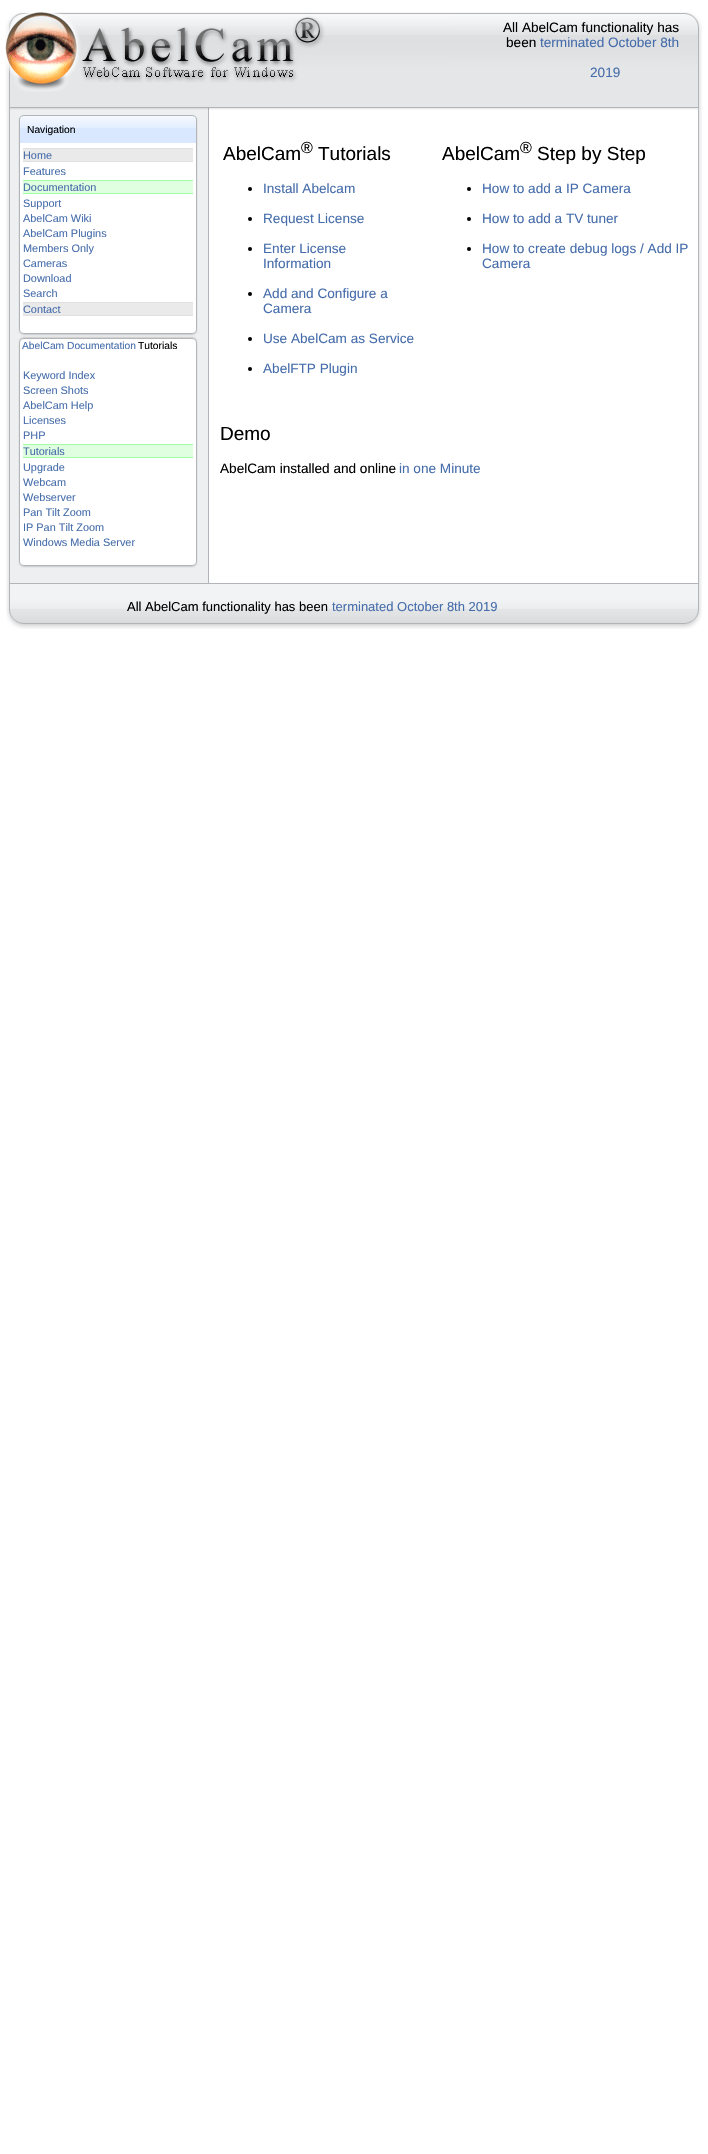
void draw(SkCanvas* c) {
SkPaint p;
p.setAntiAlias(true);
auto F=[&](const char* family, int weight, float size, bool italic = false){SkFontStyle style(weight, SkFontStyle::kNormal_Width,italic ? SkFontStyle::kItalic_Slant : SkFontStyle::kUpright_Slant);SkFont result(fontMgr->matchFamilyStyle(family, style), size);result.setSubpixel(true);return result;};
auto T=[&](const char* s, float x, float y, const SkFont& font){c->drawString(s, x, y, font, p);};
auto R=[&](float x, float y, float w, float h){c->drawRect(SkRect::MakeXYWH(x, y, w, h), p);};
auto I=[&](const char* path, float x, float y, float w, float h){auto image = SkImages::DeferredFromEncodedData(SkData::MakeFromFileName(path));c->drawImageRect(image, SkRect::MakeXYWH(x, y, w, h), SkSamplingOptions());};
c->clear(0xffffffff);
I("1.png",5,12,449,95);
I("2.png",454,12,25,95);
I("3.png",479,12,200,95);
I("4.png",679,12,23,95);
auto f1 = F("Liberation Sans",400,13.6);
p.setColor(0xff000000);
T("All AbelCam functionality has",503,32,f1);
T("been",506,47,f1);
p.setColor(0xff466dab);
T("terminated October 8th",540,47,f1);
T("2019",590,77,f1);
I("5.png",6,107,204,3);
I("6.png",210,107,493,3);
I("7.png",6,110,203,473);
I("8.png",18,115,180,28);
auto f2 = F("Liberation Sans",400,10.25);
p.setColor(0xff000000);
T("Navigation",27,133,f2);
I("9.png",18,143,180,186);
p.setColor(0xffeaeaea);
R(23,149,170,12);
p.setColor(0xffe0e0e0);
R(23,148,170,1);
R(23,161,170,1);
auto f3 = F("Liberation Sans",400,10.9);
p.setColor(0xff466dab);
T("Home",23,159,f3);
T("Features",23,175,f3);
p.setColor(0xffe0ffe0);
R(23,181,170,12);
p.setColor(0xffa0ffa0);
R(23,180,170,1);
R(23,193,170,1);
p.setColor(0xff466dab);
T("Documentation",23,191,f3);
T("Support",23,207,f3);
T("AbelCam Wiki",23,222,f3);
T("AbelCam Plugins",23,237,f3);
T("Members Only",23,252,f3);
T("Cameras",23,267,f3);
T("Download",23,282,f3);
T("Search",23,297,f3);
p.setColor(0xffeaeaea);
R(23,303,170,12);
p.setColor(0xffe0e0e0);
R(23,302,170,1);
R(23,315,170,1);
p.setColor(0xff466dab);
T("Contact",23,313,f3);
I("10.png",18,329,180,7);
I("11.png",18,336,180,28);
T("AbelCam Documentation",22,349,f2);
p.setColor(0xff000000);
T("Tutorials",138,349,f2);
I("12.png",18,364,180,197);
p.setColor(0xff466dab);
T("Keyword Index",23,379,f3);
T("Screen Shots",23,394,f3);
T("AbelCam Help",23,409,f3);
T("Licenses",23,424,f3);
T("PHP",23,439,f3);
p.setColor(0xffe0ffe0);
R(23,445,170,12);
p.setColor(0xffa0ffa0);
R(23,444,170,1);
R(23,457,170,1);
p.setColor(0xff466dab);
T("Tutorials",23,455,f3);
T("Upgrade",23,471,f3);
T("Webcam",23,486,f3);
T("Webserver",23,501,f3);
T("Pan Tilt Zoom",23,516,f3);
T("IP Pan Tilt Zoom",23,531,f3);
T("Windows Media Server",23,546,f3);
I("10.png",18,561,180,7);
I("13.png",698,110,4,473);
auto f4 = F("Liberation Sans",400,19);
p.setColor(0xff000000);
T("AbelCam",223,160,f4);
auto f5 = F("Liberation Sans",400,16);
T("®",301,153,f5);
T("Tutorials",318,160,f4);
c->drawCircle(250,189,2,p);
p.setColor(0xff466dab);
T("Install Abelcam",263,193,f1);
p.setColor(0xff000000);
c->drawCircle(250,219,2,p);
p.setColor(0xff466dab);
T("Request License",263,223,f1);
p.setColor(0xff000000);
c->drawCircle(250,249,2,p);
p.setColor(0xff466dab);
T("Enter License",263,253,f1);
T("Information",263,268,f1);
p.setColor(0xff000000);
c->drawCircle(250,294,2,p);
p.setColor(0xff466dab);
T("Add and Configure a",263,298,f1);
T("Camera",263,313,f1);
p.setColor(0xff000000);
c->drawCircle(250,339,2,p);
p.setColor(0xff466dab);
T("Use AbelCam as Service",263,343,f1);
p.setColor(0xff000000);
c->drawCircle(250,369,2,p);
p.setColor(0xff466dab);
T("AbelFTP Plugin",263,373,f1);
p.setColor(0xff000000);
T("AbelCam",442,160,f4);
T("®",520,153,f5);
T("Step by Step",537,160,f4);
c->drawCircle(469,189,2,p);
p.setColor(0xff466dab);
T("How to add a IP Camera",482,193,f1);
p.setColor(0xff000000);
c->drawCircle(469,219,2,p);
p.setColor(0xff466dab);
T("How to add a TV tuner",482,223,f1);
p.setColor(0xff000000);
c->drawCircle(469,249,2,p);
p.setColor(0xff466dab);
T("How to create debug logs / Add IP",482,253,f1);
T("Camera",482,268,f1);
p.setColor(0xff000000);
T("Demo",220,440,f4);
T("AbelCam installed and online",220,473,f1);
p.setColor(0xff466dab);
T("in one Minute",399,473,f1);
I("14.png",6,583,693,1);
I("15.png",699,583,3,1);
I("16.png",6,584,673,45);
auto f6 = F("Liberation Sans",400,13);
p.setColor(0xff000000);
T("All AbelCam functionality has been",127,611,f6);
p.setColor(0xff466dab);
T("terminated October 8th 2019",332,611,f6);
I("17.png",679,584,23,45);
}
